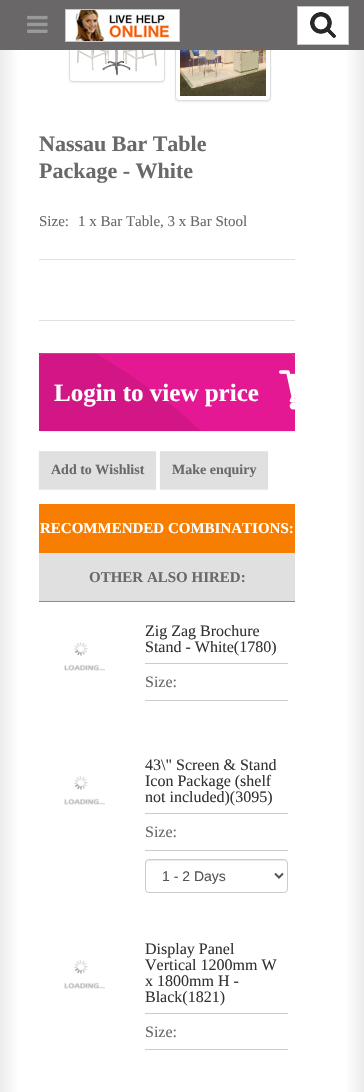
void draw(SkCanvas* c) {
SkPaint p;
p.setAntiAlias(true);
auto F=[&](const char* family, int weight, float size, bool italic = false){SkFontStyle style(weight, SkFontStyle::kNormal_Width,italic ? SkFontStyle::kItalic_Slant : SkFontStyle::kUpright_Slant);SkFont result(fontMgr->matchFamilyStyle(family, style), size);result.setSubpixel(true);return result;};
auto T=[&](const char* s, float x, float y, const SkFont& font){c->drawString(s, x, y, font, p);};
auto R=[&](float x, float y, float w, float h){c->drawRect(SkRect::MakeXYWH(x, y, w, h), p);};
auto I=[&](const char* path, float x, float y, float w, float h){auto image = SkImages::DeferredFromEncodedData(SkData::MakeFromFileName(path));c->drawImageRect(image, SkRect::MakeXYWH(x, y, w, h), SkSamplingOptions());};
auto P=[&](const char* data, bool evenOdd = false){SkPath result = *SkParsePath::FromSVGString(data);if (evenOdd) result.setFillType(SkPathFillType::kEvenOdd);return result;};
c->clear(0xffffffff);
{
const SkColor colors[] = {0xffebebeb,0xffffffff,0xffffffff,0xffebebeb};
const float stops[] = {0,.05,.95,1};
const SkPoint ends[] = {{0,508}, {364,508}};
p.setShader(SkGradientShader::MakeLinear(ends, colors, stops, 4, SkTileMode::kClamp));
p.setAlpha(255);
}
R(0,50,364,1042);
p.setShader(nullptr);
p.setColor(0x12000000);
p.setMaskFilter(SkMaskFilter::MakeBlur(kNormal_SkBlurStyle, 1));
c->drawRoundRect(SkRect::MakeXYWH(69,6,96,77),4,4,p);
p.setMaskFilter(nullptr);
p.setColor(0xffffffff);
c->drawRoundRect(SkRect::MakeXYWH(69.5,5.5,95,76),3.5,3.5,p);
p.setStroke(true);
p.setStrokeWidth(1);
p.setColor(0xffdddddd);
c->drawRoundRect(SkRect::MakeXYWH(69.5,5.5,95,76),3.5,3.5,p);
p.setStroke(false);
p.setColor(0x12000000);
p.setMaskFilter(SkMaskFilter::MakeBlur(kNormal_SkBlurStyle, 1));
c->drawRoundRect(SkRect::MakeXYWH(175,6,96,96),4,4,p);
p.setMaskFilter(nullptr);
p.setColor(0xffffffff);
c->drawRoundRect(SkRect::MakeXYWH(175.5,5.5,95,95),3.5,3.5,p);
p.setStroke(true);
p.setColor(0xffdddddd);
c->drawRoundRect(SkRect::MakeXYWH(175.5,5.5,95,95),3.5,3.5,p);
p.setStroke(false);
p.setColor(0xff696767);
R(0,0,364,50);
I("1.png",27,15,21,18);
I("2.png",65,9,115,33);
p.setColor(0xffffffff);
c->drawRect(SkRect::MakeXYWH(297.5,6.5,51,38),p);
p.setStroke(true);
p.setColor(0xffc7c7c7);
c->drawRect(SkRect::MakeXYWH(297.5,6.5,51,38),p);
I("3.png",310,12,26,26);
I("4.png",77,50,80,26);
I("5.png",180,50,86,46);
auto f1 = F("Liberation Serif",700,22);
p.setStroke(false);
p.setColor(0xff6a6868);
T("Nassau Bar Table",39,151,f1);
T("Package - White",39,178,f1);
auto f2 = F("Liberation Serif",400,15);
T("Size:",39,226,f2);
T("1 x Bar Table, 3 x Bar Stool",78,226,f2);
p.setColor(0xffe0e0e0);
R(39,259,256,1);
R(39,320,256,1);
p.setColor(0xffe41892);
R(39,353,256,78);
I("6.png",39,353,162,78);
c->save();
c->clipPath(P("M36 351h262v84h-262zm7 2h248c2 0 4 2 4 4v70c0 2-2 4-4 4h-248c-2 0-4-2-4-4v-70c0-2 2-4 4-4z",true),true);
p.setColor(0x12000000);
p.setMaskFilter(SkMaskFilter::MakeBlur(kNormal_SkBlurStyle, .5));
c->drawRoundRect(SkRect::MakeXYWH(39,354,256,78),4,4,p);
p.setMaskFilter(nullptr);
c->restore();
p.setColor(0x26ffffff);
c->drawPath(P("M43 354h249l2 2l1 2v-1c0-2-2-4-4-4h-248c-2 0-4 2-4 4v1c0-2 2-4 4-4z"),p);
auto f3 = F("Liberation Serif",700,25);
p.setColor(0xffffffff);
T("Login to view price",54,401,f3);
I("7.png",279,370,16,40);
p.setColor(0x12000000);
p.setMaskFilter(SkMaskFilter::MakeBlur(kNormal_SkBlurStyle, .5));
c->drawRect(SkRect::MakeXYWH(39,452,117,38),p);
p.setMaskFilter(nullptr);
p.setColor(0xffe0e0e0);
R(39,452,117,37);
p.setColor(0xffe5e5e5);
R(39,451,117,1);
auto f4 = F("Liberation Serif",700,14);
p.setColor(0xff6a6868);
T("Add to Wishlist",51,474,f4);
p.setColor(0x12000000);
p.setMaskFilter(SkMaskFilter::MakeBlur(kNormal_SkBlurStyle, .5));
c->drawRect(SkRect::MakeXYWH(160,452,108,38),p);
p.setMaskFilter(nullptr);
p.setColor(0xffe0e0e0);
R(160,452,108,37);
p.setColor(0xffe5e5e5);
R(160,451,108,1);
p.setColor(0xff6a6868);
T("Make enquiry",172,474,f4);
p.setColor(0xfff2653f);
R(39,601,256,1);
p.setColor(0xfff77e00);
R(39,504,256,49);
auto f5 = F("Liberation Serif",700,15);
p.setColor(0xffffffff);
T("RECOMMENDED COMBINATIONS:",40,533,f5);
p.setColor(0xffe0e0e0);
R(39,553,256,48);
p.setColor(0xff6a6868);
T("OTHER ALSO HIRED:",89,582,f5);
I("8.png",64,642,41,29);
p.setColor(0xffcccccc);
R(145,663,143,1);
auto f6 = F("Liberation Serif",400,16);
p.setColor(0xff333333);
T("Zig Zag Brochure",145,636,f6);
T("Stand - White(1780)",145,652,f6);
p.setColor(0xffcccccc);
R(145,700,143,1);
p.setColor(0xff6a6868);
T("Size:",145,687,f6);
I("8.png",64,776,41,29);
p.setColor(0xffcccccc);
R(145,813,143,1);
p.setColor(0xff333333);
T("43\\\" Screen & Stand",145,770,f6);
T("Icon Package (shelf",145,786,f6);
T("not included)(3095)",145,802,f6);
p.setColor(0xffcccccc);
R(145,850,143,1);
p.setColor(0xff6a6868);
T("Size:",145,837,f6);
p.setColor(0xffececec);
c->drawPath(P("M149 861h135c2 0 3 1 3 3v-1c0-2-1-3-3-3h-135c-2 0-3 1-3 3v1c0-2 1-3 3-3z"),p);
p.setStroke(true);
p.setColor(0xffcccccc);
c->drawRoundRect(SkRect::MakeXYWH(145.5,859.5,142,33),3.5,3.5,p);
p.setStrokeWidth(2);
p.setColor(0xff555555);
c->drawPath(P("M275 873.5l4 4l4-4"),p);
auto f7 = F("Liberation Sans",400,14);
p.setStroke(false);
T("1 - 2 Days",162,881,f7);
I("8.png",64,960,41,29);
p.setColor(0xffcccccc);
R(145,1013,143,1);
p.setColor(0xff333333);
T("Display Panel",145,954,f6);
T("Vertical 1200mm W",145,970,f6);
T("x 1800mm H -",145,986,f6);
T("Black(1821)",145,1002,f6);
p.setColor(0xffcccccc);
R(145,1049,143,1);
p.setColor(0xff6a6868);
T("Size:",145,1037,f6);
}
